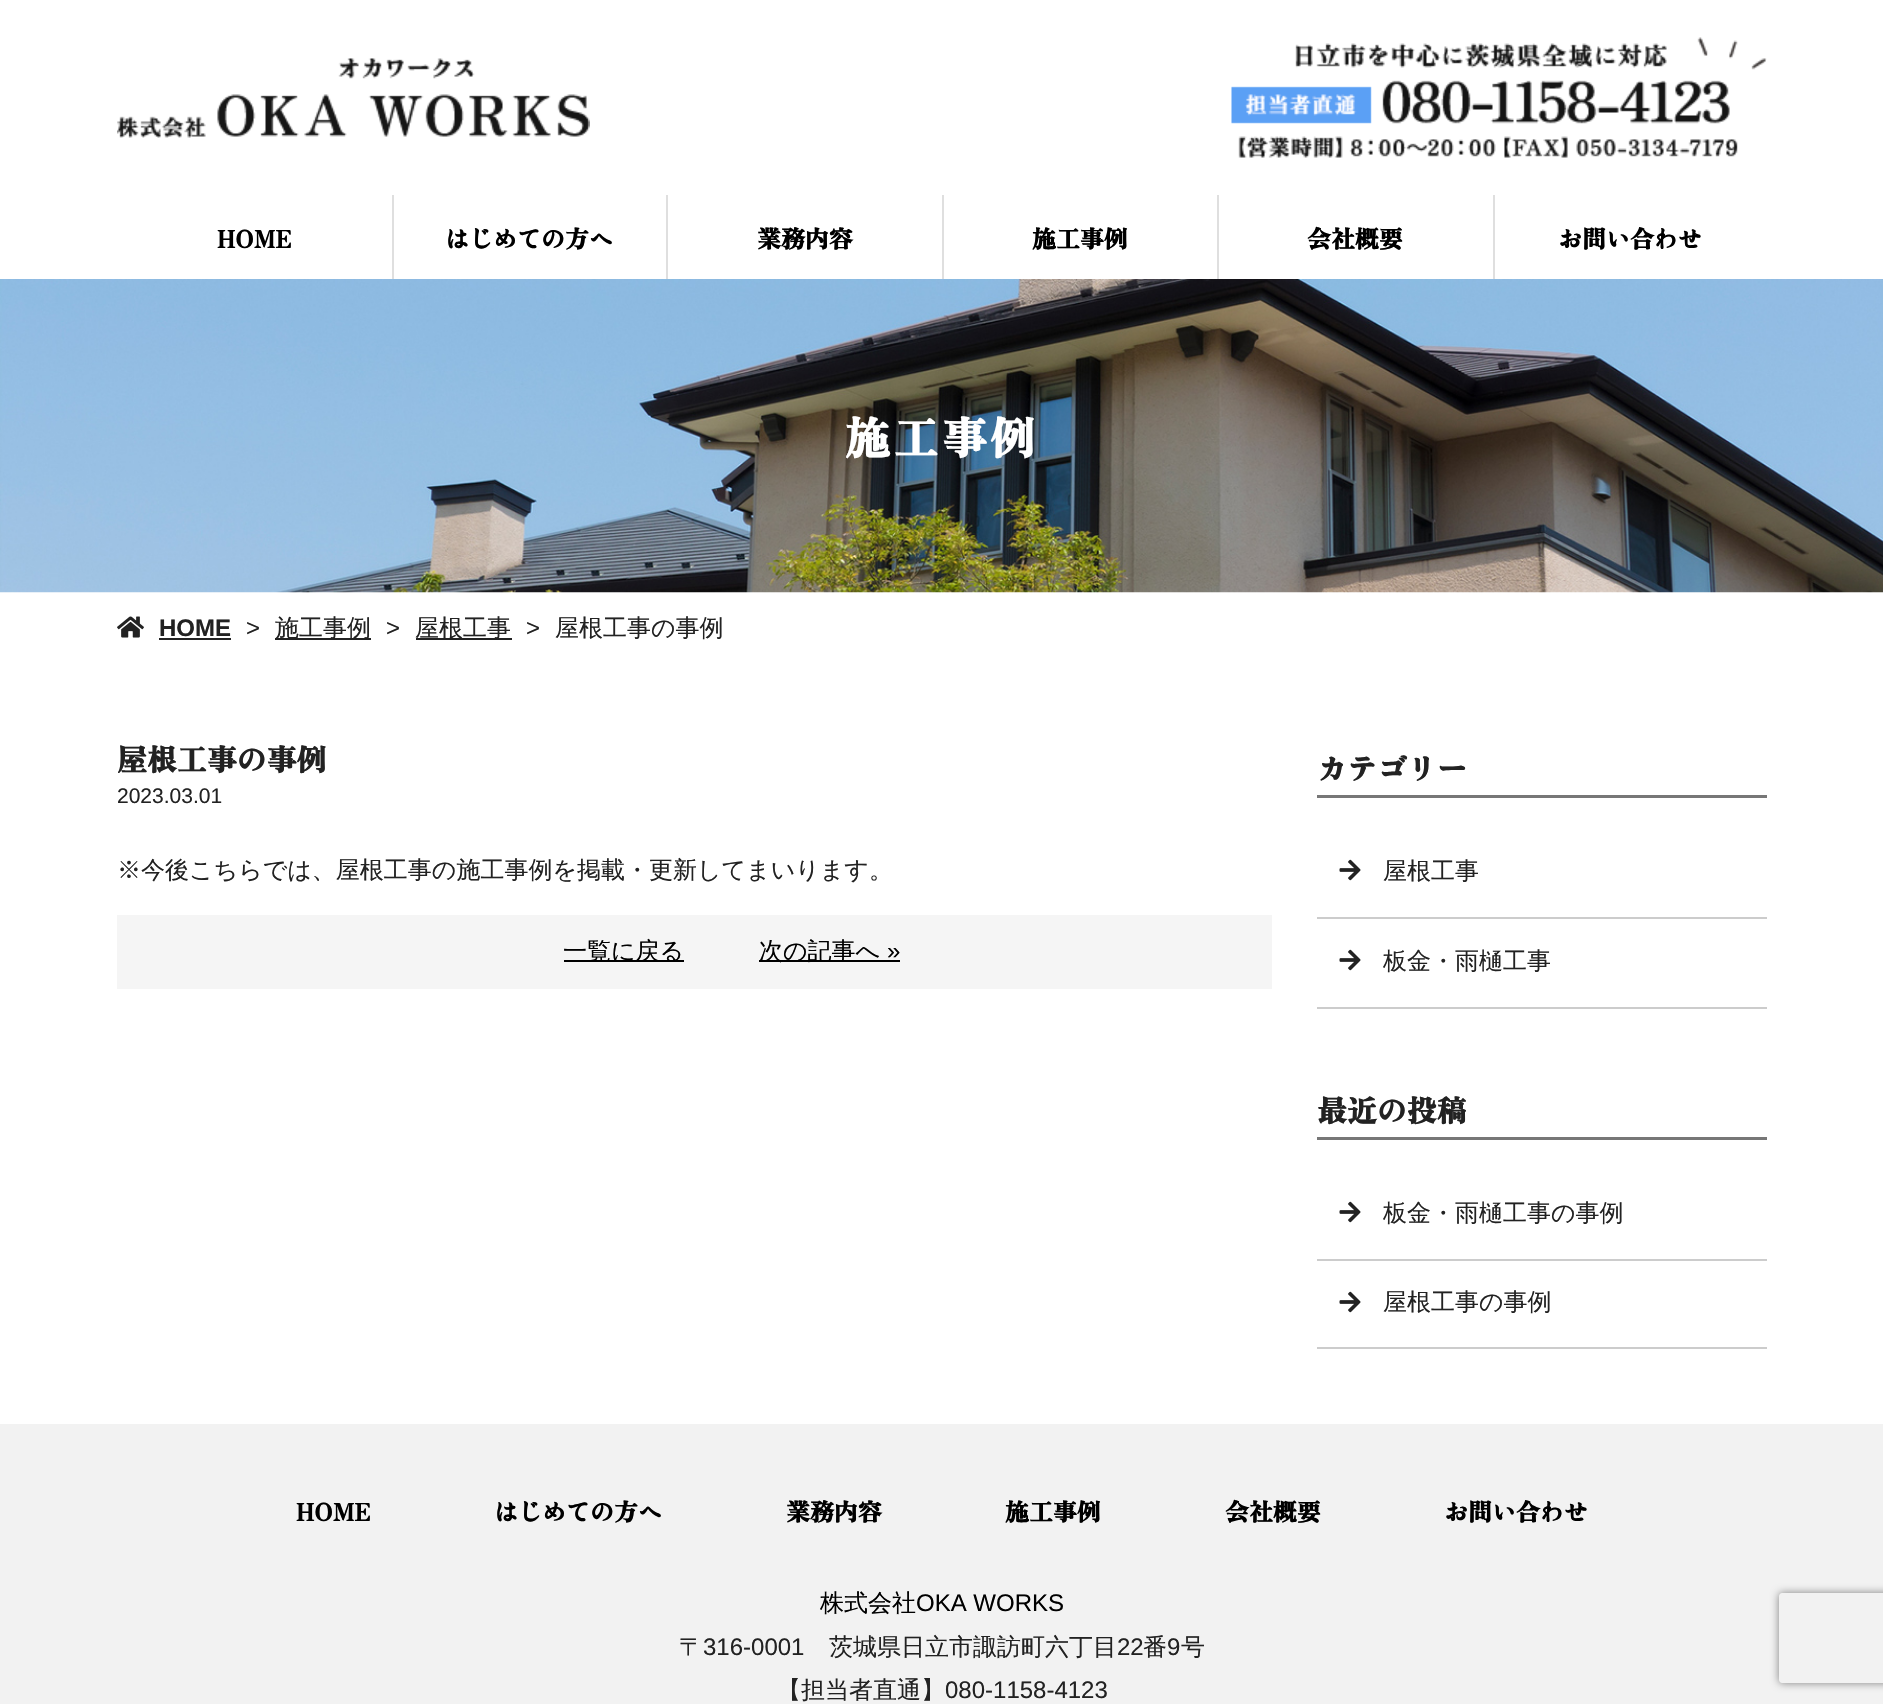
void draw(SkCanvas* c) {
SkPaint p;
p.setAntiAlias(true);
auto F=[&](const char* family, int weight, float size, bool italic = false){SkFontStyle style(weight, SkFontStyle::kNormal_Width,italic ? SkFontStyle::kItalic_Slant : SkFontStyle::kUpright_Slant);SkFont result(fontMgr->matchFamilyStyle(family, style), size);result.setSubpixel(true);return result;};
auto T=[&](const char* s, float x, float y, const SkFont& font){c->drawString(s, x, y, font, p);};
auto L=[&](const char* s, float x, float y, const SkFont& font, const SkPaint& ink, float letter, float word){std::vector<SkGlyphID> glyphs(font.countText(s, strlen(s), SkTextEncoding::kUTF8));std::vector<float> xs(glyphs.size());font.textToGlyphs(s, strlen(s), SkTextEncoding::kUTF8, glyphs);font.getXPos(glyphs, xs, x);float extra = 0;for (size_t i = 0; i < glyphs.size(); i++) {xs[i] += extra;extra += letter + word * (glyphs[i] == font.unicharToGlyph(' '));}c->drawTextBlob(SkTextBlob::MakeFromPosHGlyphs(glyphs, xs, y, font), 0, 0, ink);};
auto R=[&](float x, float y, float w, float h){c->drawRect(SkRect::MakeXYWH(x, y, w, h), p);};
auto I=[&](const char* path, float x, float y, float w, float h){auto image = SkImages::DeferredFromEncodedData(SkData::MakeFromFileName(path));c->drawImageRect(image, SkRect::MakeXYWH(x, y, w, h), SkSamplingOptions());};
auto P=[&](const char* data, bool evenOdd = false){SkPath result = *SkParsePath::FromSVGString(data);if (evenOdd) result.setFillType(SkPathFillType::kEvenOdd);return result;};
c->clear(0xffffffff);
I("1.png",117,58,473,80);
I("2.png",1231,37,536,121);
auto f1 = F("Zen Antique",700,24);
p.setColor(0xff000000);
T("HOME",217,248,f1);
p.setColor(0xffdfdfdf);
R(392,195,2,84);
p.setColor(0xff000000);
T("はじめての方へ",445,248,f1);
p.setColor(0xffdfdfdf);
R(666,195,2,84);
p.setColor(0xff000000);
T("業務内容",757,248,f1);
p.setColor(0xffdfdfdf);
R(942,195,2,84);
p.setColor(0xff000000);
T("施工事例",1032,248,f1);
p.setColor(0xffdfdfdf);
R(1217,195,2,84);
p.setColor(0xff000000);
T("会社概要",1307,248,f1);
p.setColor(0xffdfdfdf);
R(1493,195,2,84);
p.setColor(0xff000000);
T("お問い合わせ",1558,248,f1);
I("3.png",0,279,1883,314);
auto f2 = F("Zen Antique",700,45);
p.setColor(0xffffffff);
L("施工事例",845,455,f2,p,3.5,0);
I("4.png",117,616,27,22);
auto f3 = F("Liberation Sans",700,24);
p.setColor(0xff222222);
T("HOME",159,636,f3);
R(159,638,72,2);
auto f4 = F("Liberation Sans",400,24);
T(">",246,636,f4);
R(275,638,96,2);
auto f5 = F("WenQuanYi Zen Hei",500,24);
T("施工事例",275,636,f5);
T(">",386,636,f4);
R(416,638,96,2);
T("屋根工事",415,636,f5);
T(">",526,636,f4);
T("屋根工事の事例",555,636,f5);
auto f6 = F("Zen Antique",700,30);
T("屋根工事の事例",117,771,f6);
auto f7 = F("Liberation Sans",400,21);
T("2023.03.01",117,803,f7);
T("※今後こちらでは、屋根工事の施工事例を掲載・更新してまいります。",117,878,f5);
p.setColor(0xfff5f5f5);
R(117,915,1155,74);
p.setColor(0xff000000);
R(564,960,120,2);
T("一覧に戻る",563,959,f5);
R(759,960,141,2);
T("次の記事へ",759,959,f5);
T("»",887,959,f4);
p.setColor(0xff777777);
R(1317,795,450,3);
p.setColor(0xff222222);
T("カテゴリー",1317,780,f6);
p.setColor(0xffcccccc);
R(1317,917,450,2);
I("5.png",1339,859,22,22);
p.setColor(0xff222222);
T("屋根工事",1383,879,f5);
p.setColor(0xffcccccc);
R(1317,1007,450,2);
I("5.png",1339,949,22,22);
p.setColor(0xff222222);
T("板金・雨樋工事",1383,969,f5);
p.setColor(0xff777777);
R(1317,1137,450,3);
p.setColor(0xff222222);
T("最近の投稿",1317,1122,f6);
p.setColor(0xffcccccc);
R(1317,1259,450,2);
I("5.png",1339,1201,22,22);
p.setColor(0xff222222);
T("板金・雨樋工事の事例",1383,1221,f5);
p.setColor(0xffcccccc);
R(1317,1347,450,2);
I("5.png",1339,1291,22,22);
p.setColor(0xff222222);
T("屋根工事の事例",1383,1310,f5);
p.setColor(0xfff2f2f2);
R(0,1424,1883,280);
p.setColor(0xff000000);
T("HOME",296,1521,f1);
T("はじめての方へ",494,1521,f1);
T("業務内容",786,1521,f1);
T("施工事例",1005,1521,f1);
T("会社概要",1225,1521,f1);
T("お問い合わせ",1444,1521,f1);
T("株式会社",820,1611,f5);
T("OKA WORKS",916,1611,f4);
p.setColor(0xff222222);
T("〒",679,1655,f5);
T("316-0001",703,1655,f4);
T("茨城県日立市諏訪町六丁目",829,1655,f5);
T("22",1117,1655,f4);
T("番",1143,1655,f5);
T("9",1167,1655,f4);
T("号",1181,1655,f5);
T("【担当者直通】",777,1698,f5);
T("080-1158-4123",945,1698,f4);
c->save();
c->clipPath(P("M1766 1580h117v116h-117zm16 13h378c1.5 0 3 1.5 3 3v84c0 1.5-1.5 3-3 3h-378c-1.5 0-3-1.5-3-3v-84c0-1.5 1.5-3 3-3z",true),true);
p.setColor(0xff808080);
p.setMaskFilter(SkMaskFilter::MakeBlur(kNormal_SkBlurStyle, 4));
c->drawRoundRect(SkRect::MakeXYWH(1779,1593,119,90),3,3,p);
p.setMaskFilter(nullptr);
c->restore();
}
